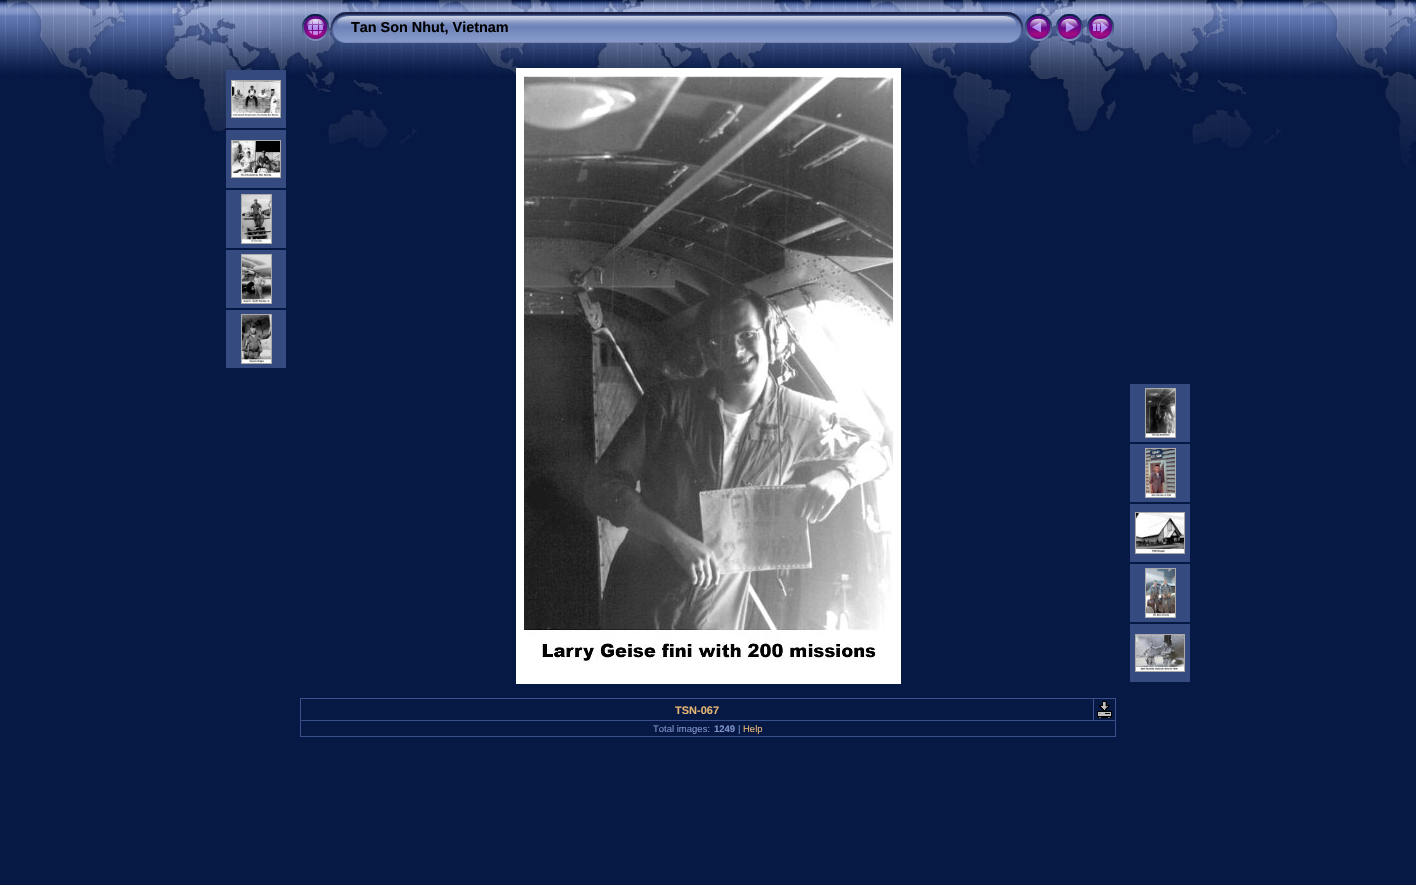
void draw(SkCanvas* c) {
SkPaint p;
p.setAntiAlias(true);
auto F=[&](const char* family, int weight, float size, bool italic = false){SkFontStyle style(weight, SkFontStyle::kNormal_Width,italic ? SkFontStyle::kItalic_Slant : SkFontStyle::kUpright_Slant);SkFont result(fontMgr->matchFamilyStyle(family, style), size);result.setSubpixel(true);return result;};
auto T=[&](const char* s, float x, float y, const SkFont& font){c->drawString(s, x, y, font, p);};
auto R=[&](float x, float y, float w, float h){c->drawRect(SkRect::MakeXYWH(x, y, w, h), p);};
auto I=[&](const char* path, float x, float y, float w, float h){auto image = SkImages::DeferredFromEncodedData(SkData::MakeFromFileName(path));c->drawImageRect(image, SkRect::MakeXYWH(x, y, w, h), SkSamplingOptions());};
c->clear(0xff061844);
I("1.png",0,0,1416,168);
I("2.png",302,14,27,27);
I("3.png",331,12,20,31);
I("4.png",351,12,652,31);
auto f1 = F("Liberation Sans",700,14.4);
p.setColor(0xff000000);
T("Tan Son Nhut, Vietnam",351,32,f1);
I("5.png",1003,12,20,31);
I("6.png",1025,14,27,27);
I("7.png",1056,14,27,27);
I("8.png",1087,14,27,27);
p.setColor(0xff354b7f);
R(226,70,60,58);
p.setStroke(true);
p.setStrokeWidth(1);
p.setColor(0xffaaaaaa);
c->drawRect(SkRect::MakeXYWH(231.5,80.5,49,37),p);
I("9.png",232,81,48,36);
p.setStroke(false);
p.setColor(0xff354b7f);
R(226,130,60,58);
p.setStroke(true);
p.setColor(0xffaaaaaa);
c->drawRect(SkRect::MakeXYWH(231.5,140.5,49,37),p);
I("10.png",232,141,48,36);
p.setStroke(false);
p.setColor(0xff354b7f);
R(226,190,60,58);
p.setStroke(true);
p.setColor(0xffaaaaaa);
c->drawRect(SkRect::MakeXYWH(241.5,194.5,30,49),p);
I("11.png",242,195,29,48);
p.setStroke(false);
p.setColor(0xff354b7f);
R(226,250,60,58);
p.setStroke(true);
p.setColor(0xffaaaaaa);
c->drawRect(SkRect::MakeXYWH(241.5,254.5,30,49),p);
I("12.png",242,255,29,48);
p.setStroke(false);
p.setColor(0xff354b7f);
R(226,310,60,58);
p.setStroke(true);
p.setColor(0xffaaaaaa);
c->drawRect(SkRect::MakeXYWH(241.5,314.5,30,49),p);
I("13.png",242,315,29,48);
p.setStrokeWidth(8);
p.setColor(0xffffffff);
c->drawRect(SkRect::MakeXYWH(520,72,377,608),p);
I("14.png",524,76,369,600);
p.setStroke(false);
p.setColor(0xff354b7f);
R(1130,384,60,58);
p.setStroke(true);
p.setStrokeWidth(1);
p.setColor(0xffaaaaaa);
c->drawRect(SkRect::MakeXYWH(1145.5,388.5,30,49),p);
I("15.png",1146,389,29,48);
p.setStroke(false);
p.setColor(0xff354b7f);
R(1130,444,60,58);
p.setStroke(true);
p.setColor(0xffaaaaaa);
c->drawRect(SkRect::MakeXYWH(1145.5,448.5,30,49),p);
I("16.png",1146,449,29,48);
p.setStroke(false);
p.setColor(0xff354b7f);
R(1130,504,60,58);
p.setStroke(true);
p.setColor(0xffaaaaaa);
c->drawRect(SkRect::MakeXYWH(1135.5,512.5,49,41),p);
I("17.png",1136,513,48,40);
p.setStroke(false);
p.setColor(0xff354b7f);
R(1130,564,60,58);
p.setStroke(true);
p.setColor(0xffaaaaaa);
c->drawRect(SkRect::MakeXYWH(1145.5,568.5,30,49),p);
I("18.png",1146,569,29,48);
p.setStroke(false);
p.setColor(0xff354b7f);
R(1130,624,60,58);
p.setStroke(true);
p.setColor(0xffaaaaaa);
c->drawRect(SkRect::MakeXYWH(1135.5,634.5,49,37),p);
I("19.png",1136,635,48,36);
p.setStroke(false);
p.setColor(0xff38518c);
R(1093,698,23,1);
R(300,720,816,1);
R(1093,698,1,23);
R(300,698,794,1);
R(1115,720,1,17);
R(300,736,816,1);
R(300,720,1,17);
R(300,698,1,23);
auto f2 = F("Liberation Sans",700,11);
p.setColor(0xffe5b673);
T("TSN-067",675,714,f2);
p.setColor(0xff38518c);
R(1115,698,1,23);
I("20.png",1097,701,15,17);
auto f3 = F("Liberation Sans",400,9.5);
p.setColor(0xff7e93cc);
T("Total images:",653,732,f3);
auto f4 = F("Liberation Sans",700,9.5);
T("1249",714,732,f4);
T("|",738,732,f3);
p.setColor(0xffe5b673);
T("Help",743,732,f3);
}
